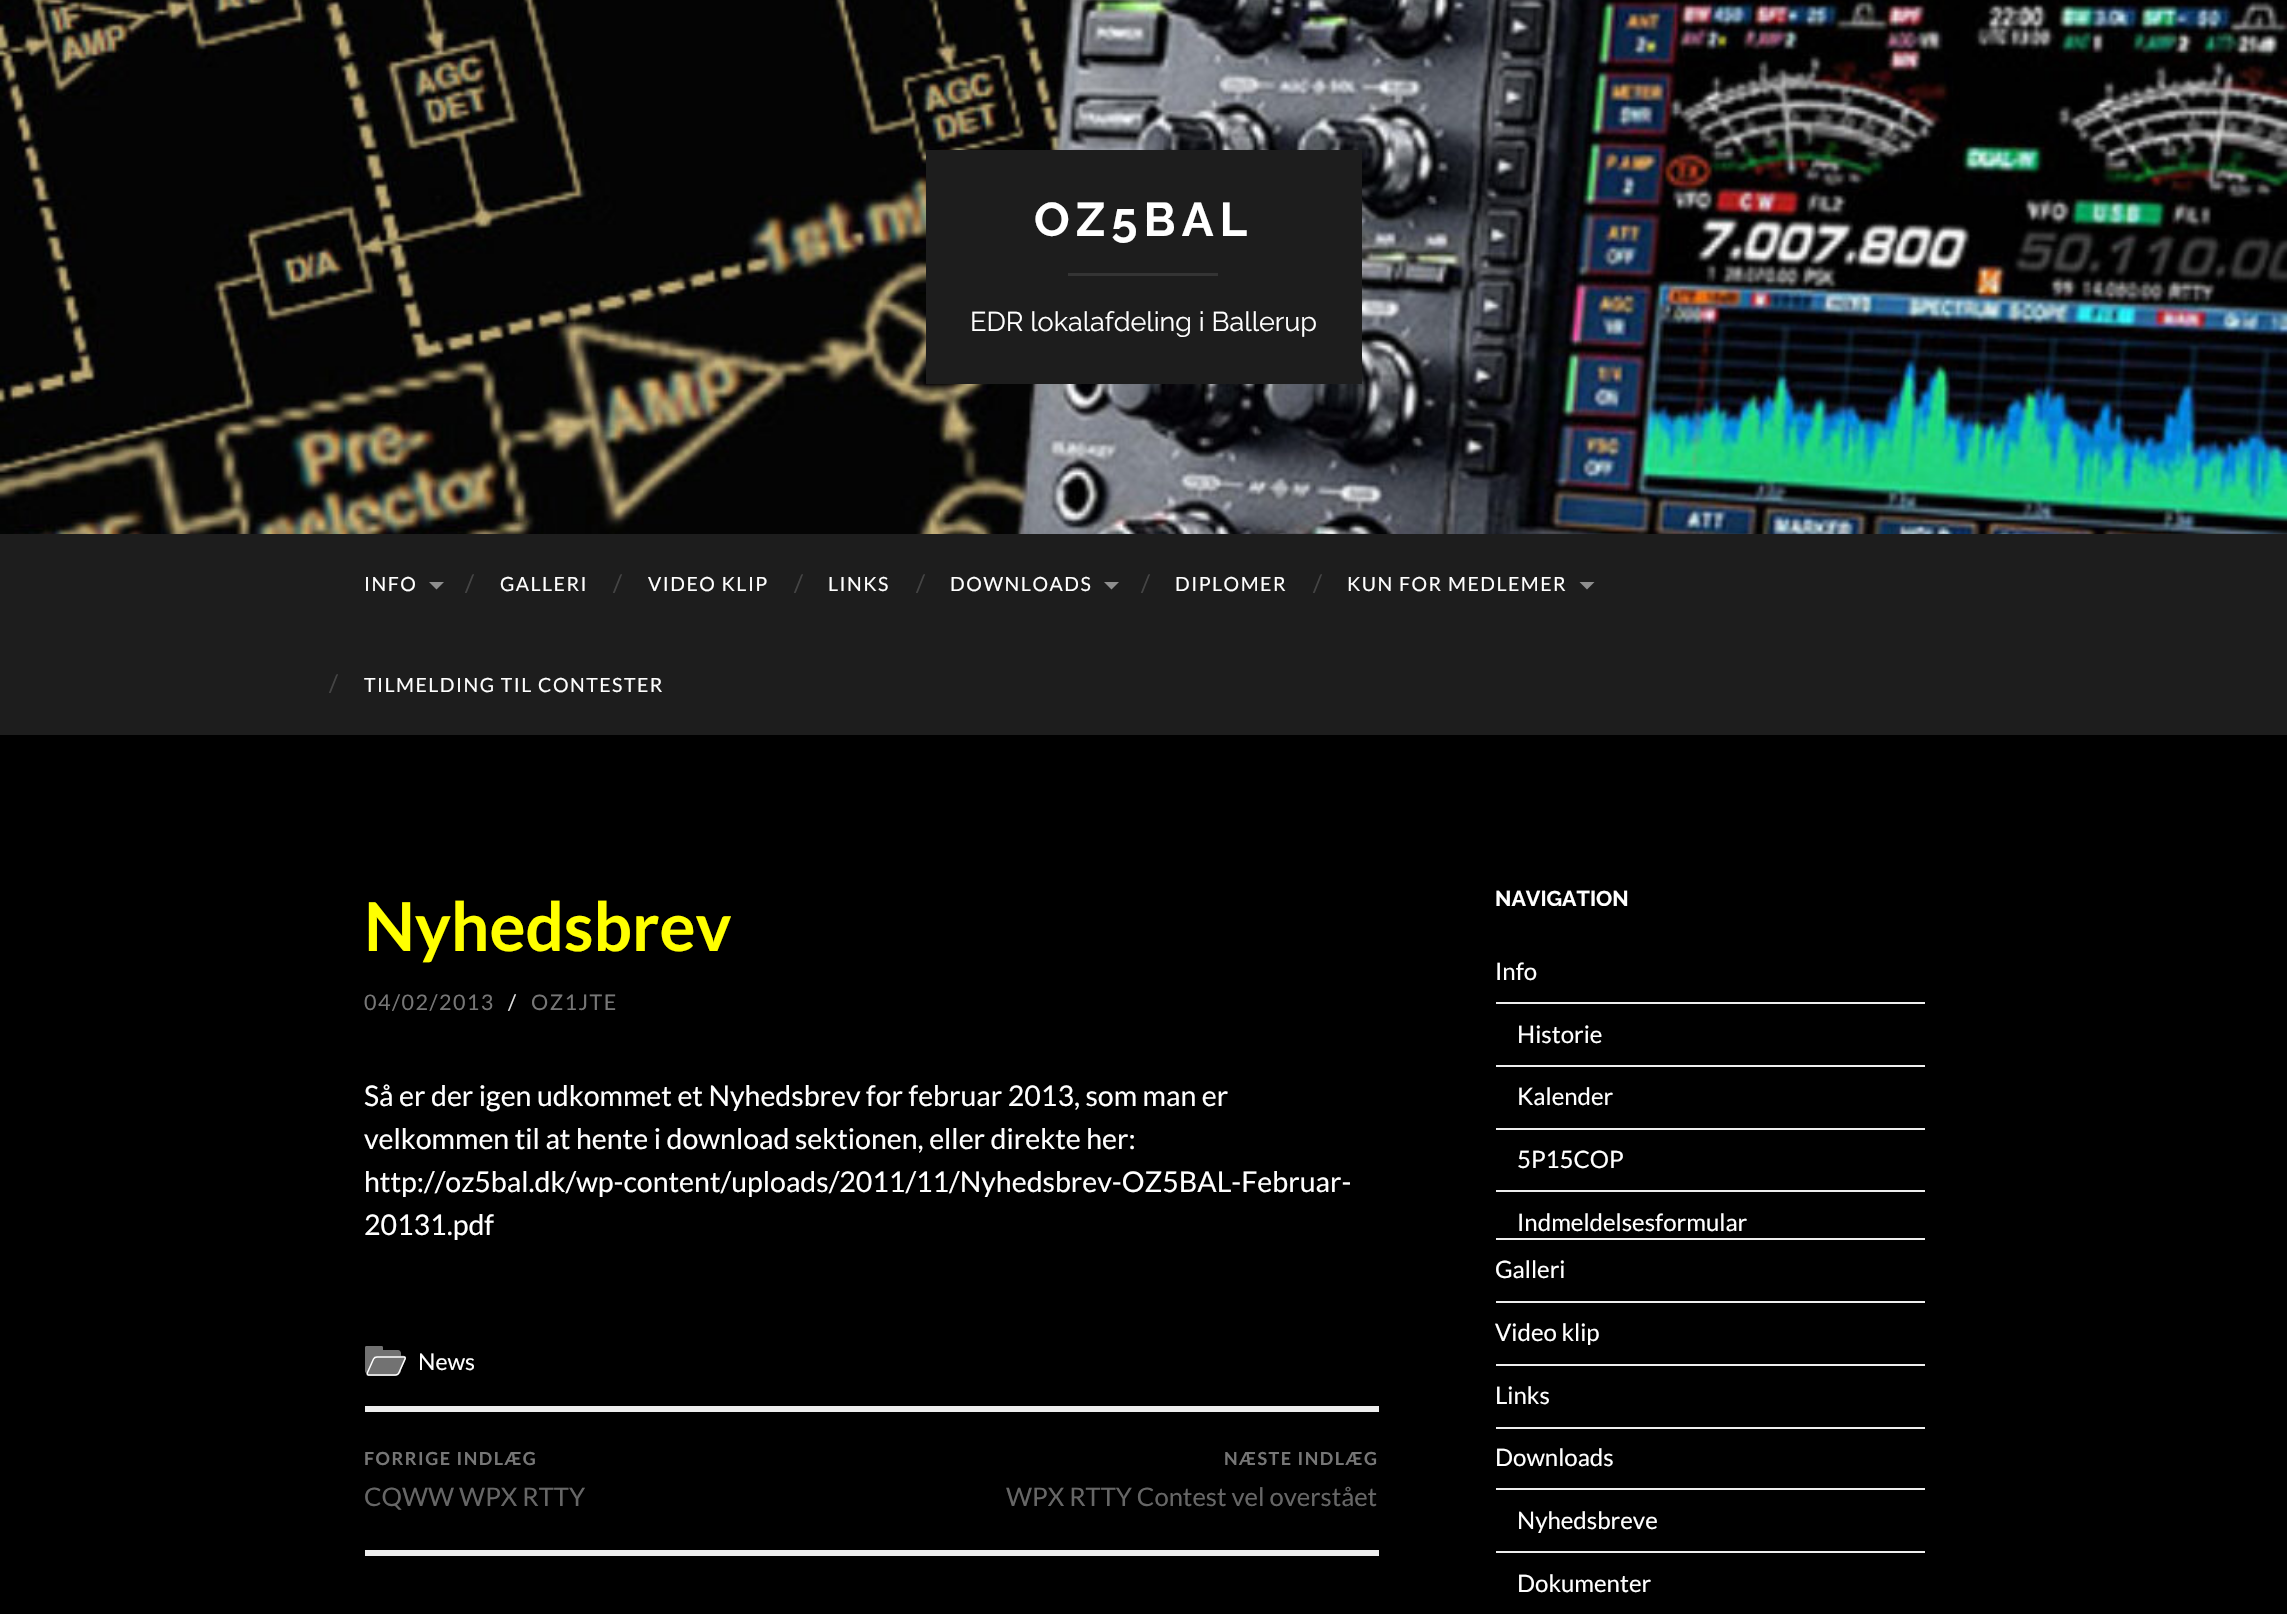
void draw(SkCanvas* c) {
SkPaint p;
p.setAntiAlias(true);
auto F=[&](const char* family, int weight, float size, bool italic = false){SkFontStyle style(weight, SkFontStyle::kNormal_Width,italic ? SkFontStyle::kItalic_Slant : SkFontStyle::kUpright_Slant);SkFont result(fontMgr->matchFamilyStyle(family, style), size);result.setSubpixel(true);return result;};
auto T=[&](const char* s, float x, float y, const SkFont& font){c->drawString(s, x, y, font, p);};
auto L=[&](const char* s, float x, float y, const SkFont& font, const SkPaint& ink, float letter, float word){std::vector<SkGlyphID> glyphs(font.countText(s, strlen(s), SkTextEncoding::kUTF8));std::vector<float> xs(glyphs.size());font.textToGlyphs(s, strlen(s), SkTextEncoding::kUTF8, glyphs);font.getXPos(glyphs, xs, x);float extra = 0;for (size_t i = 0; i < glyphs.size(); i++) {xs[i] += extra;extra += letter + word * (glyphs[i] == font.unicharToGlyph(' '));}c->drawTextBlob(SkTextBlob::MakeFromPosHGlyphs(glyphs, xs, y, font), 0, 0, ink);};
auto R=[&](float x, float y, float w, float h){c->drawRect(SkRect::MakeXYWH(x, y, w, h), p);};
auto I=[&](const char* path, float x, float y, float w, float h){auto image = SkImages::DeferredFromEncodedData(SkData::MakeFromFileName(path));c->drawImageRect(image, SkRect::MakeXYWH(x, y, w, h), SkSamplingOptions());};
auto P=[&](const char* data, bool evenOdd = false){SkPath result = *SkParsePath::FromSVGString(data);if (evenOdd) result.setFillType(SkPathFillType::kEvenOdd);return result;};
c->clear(0xff000000);
I("1.png",0,0,2287,534);
p.setColor(0xff1d1d1d);
R(926,150,436,234);
auto f1 = F("Raleway",100,47.25);
p.setColor(0xffffffff);
L("OZ5BAL",1034,236,f1,p,6,0);
p.setColor(0xff343434);
R(1068,273,150,3);
auto f2 = F("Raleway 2",100,27);
p.setColor(0xffffffff);
T("EDR lokalafdeling i Ballerup",970,331,f2);
p.setColor(0xff1d1d1d);
R(0,534,2287,201);
auto f3 = F("Lato",400,19.5);
p.setColor(0xffffffff);
L("INFO",364,591,f3,p,1.5,0);
p.setColor(0xff8e8e8e);
c->drawPath(P("M429 582h15l-7.5 7.5z"),p);
auto f4 = F("Lato",400,24);
p.setColor(0xff444444);
T("/",465,592,f4);
p.setColor(0xffffffff);
L("GALLERI",500,591,f3,p,1.5,0);
p.setColor(0xff444444);
T("/",613,592,f4);
p.setColor(0xffffffff);
L("VIDEO KLIP",648,591,f3,p,1.5,0);
p.setColor(0xff444444);
T("/",794,592,f4);
p.setColor(0xffffffff);
L("LINKS",828,591,f3,p,1.5,0);
p.setColor(0xff444444);
T("/",916,592,f4);
p.setColor(0xffffffff);
L("DOWNLOADS",950,591,f3,p,1.5,0);
p.setColor(0xff8e8e8e);
c->drawPath(P("M1104 582h15l-7.5 7.5z"),p);
p.setColor(0xff444444);
T("/",1141,592,f4);
p.setColor(0xffffffff);
L("DIPLOMER",1175,591,f3,p,1.5,0);
p.setColor(0xff444444);
T("/",1313,592,f4);
p.setColor(0xffffffff);
L("KUN FOR MEDLEMER",1347,591,f3,p,1.5,0);
p.setColor(0xff8e8e8e);
c->drawPath(P("M1579.5 582h15l-7.5 7.5z"),p);
p.setColor(0xff444444);
T("/",329,692,f4);
p.setColor(0xffffffff);
L("TILMELDING TIL CONTESTER",364,692,f3,p,1.5,0);
auto f5 = F("Lato",700,67.5);
p.setColor(0xffffff00);
T("Nyhedsbrev",364,951,f5);
auto f6 = F("Lato",400,21.5);
p.setColor(0xff767676);
L("04/02/2013",364,1010,f6,p,1.5,0);
p.setColor(0xffdddddd);
L("/",508,1010,f6,p,1.5,0);
p.setColor(0xff767676);
L("OZ1JTE",531,1010,f6,p,1.5,0);
auto f7 = F("Lato",400,28.5);
p.setColor(0xffffffff);
T("Så er der igen udkommet et Nyhedsbrev for februar 2013, som man er",364,1106,f7);
T("velkommen til at hente i download sektionen, eller direkte her:",364,1149,f7);
T("http://oz5bal.dk/wp-content/uploads/2011/11/Nyhedsbrev-OZ5BAL-Februar-",364,1192,f7);
T("20131.pdf",364,1235,f7);
p.setColor(0xff727272);
c->drawPath(P("M365 1350h33c1.5 0 3 1.5 3 3v18c0 1.5-1.5 3-3 3h-30c-1.5 0-3-1.5-3-3z"),p);
c->drawPath(P("M366.5 1346h15c1 0 1.5 .5 1.5 1.5v3.5h-18v-3.5c0-1 .5-1.5 1.5-1.5z"),p);
c->drawPath(P("M377 1356h18c7 0 14-2 10 5l-4 9c-3 6-4 6-10 6h-23c-4 0 1-9 2-10c1-3 3-10 7-10z"),p);
p.setStroke(true);
p.setStrokeWidth(1.5);
p.setColor(0xffffffff);
c->drawPath(P("M377 1357h27c1 0 1.5 1 1 2l-6 13.5c-.5 1.5-2 2.5-3.5 2.5h-27c-1 0-1.5-1-1-2.5l6-13.5c.5-1 2-2 3.5-2z"),p);
auto f8 = F("Lato",400,23);
p.setStroke(false);
T("News",418,1370,f8);
p.setColor(0xffeeeeee);
R(365,1406,1014,6);
R(365,1550,1014,6);
auto f9 = F("Lato",700,18);
p.setColor(0xff767676);
L("FORRIGE INDLÆG",364,1465,f9,p,1.5,0);
auto f10 = F("Lato",400,25.6);
p.setColor(0xff666666);
T("CQWW WPX RTTY",364,1506,f10);
p.setColor(0xff767676);
L("NÆSTE INDLÆG",1224,1465,f9,p,1.5,0);
p.setColor(0xff666666);
T("WPX RTTY Contest vel overstået",1006,1506,f10);
auto f11 = F("Raleway",100,21.5);
p.setColor(0xffffffff);
T("NAVIGATION",1495,906,f11);
T("Info",1495,980,f4);
p.setColor(0xffeeeeee);
R(1496,1002,429,2);
p.setColor(0xffffffff);
T("Historie",1517,1043,f4);
p.setColor(0xffeeeeee);
R(1496,1065,429,2);
p.setColor(0xffffffff);
T("Kalender",1517,1105,f4);
p.setColor(0xffeeeeee);
R(1496,1128,429,2);
p.setColor(0xffffffff);
T("5P15COP",1517,1168,f4);
p.setColor(0xffeeeeee);
R(1496,1190,429,2);
p.setColor(0xffffffff);
T("Indmeldelsesformular",1517,1231,f4);
p.setColor(0xffeeeeee);
R(1496,1238,429,2);
p.setColor(0xffffffff);
T("Galleri",1495,1278,f4);
p.setColor(0xffeeeeee);
R(1496,1301,429,2);
p.setColor(0xffffffff);
T("Video klip",1495,1341,f4);
p.setColor(0xffeeeeee);
R(1496,1364,429,2);
p.setColor(0xffffffff);
T("Links",1495,1404,f4);
p.setColor(0xffeeeeee);
R(1496,1427,429,2);
p.setColor(0xffffffff);
T("Downloads",1495,1466,f4);
p.setColor(0xffeeeeee);
R(1496,1488,429,2);
p.setColor(0xffffffff);
T("Nyhedsbreve",1517,1529,f4);
p.setColor(0xffeeeeee);
R(1496,1551,429,2);
p.setColor(0xffffffff);
T("Dokumenter",1517,1592,f4);
}
